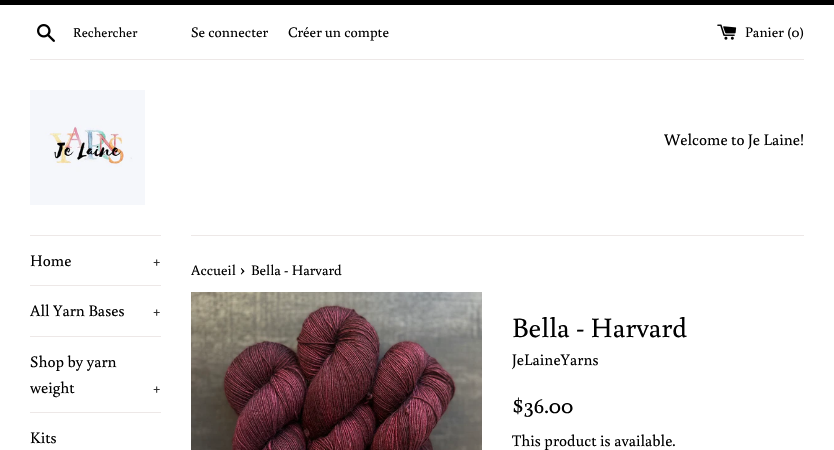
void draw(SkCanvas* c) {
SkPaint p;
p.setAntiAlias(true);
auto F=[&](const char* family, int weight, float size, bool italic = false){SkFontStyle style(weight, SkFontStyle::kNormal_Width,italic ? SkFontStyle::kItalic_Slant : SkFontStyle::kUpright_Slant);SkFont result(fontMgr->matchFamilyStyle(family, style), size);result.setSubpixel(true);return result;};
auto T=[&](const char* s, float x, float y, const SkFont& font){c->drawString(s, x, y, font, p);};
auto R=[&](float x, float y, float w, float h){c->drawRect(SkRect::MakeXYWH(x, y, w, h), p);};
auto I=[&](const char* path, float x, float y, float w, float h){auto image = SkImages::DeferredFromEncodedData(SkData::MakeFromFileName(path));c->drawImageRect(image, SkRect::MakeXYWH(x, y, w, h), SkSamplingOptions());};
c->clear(0xffffffff);
p.setColor(0xff000000);
R(0,0,834,5);
I("1.png",37,24,18,18);
auto f1 = F("Buenard",400,13.5);
T("Rechercher",73,37,f1);
auto f2 = F("Buenard",400,14.5);
T("Se connecter",191,37,f2);
T("Créer un compte",288,37,f2);
I("2.png",717,24,20,16);
T("Panier (0)",745,37,f2);
p.setColor(0xffede8e7);
R(30,59,774,1);
I("3.png",30,90,115,115);
auto f3 = F("Buenard",400,16);
p.setColor(0xff000000);
T("Welcome to Je Laine!",664,145,f3);
p.setColor(0xffede8e7);
R(30,235,131,1);
R(30,285,131,1);
p.setColor(0xff000000);
T("Home",30,266,f3);
p.setColor(0xff333333);
T("+",153,266,f3);
p.setColor(0xffede8e7);
R(30,336,131,1);
p.setColor(0xff000000);
T("All Yarn Bases",30,316,f3);
p.setColor(0xff333333);
T("+",153,316,f3);
p.setColor(0xffede8e7);
R(30,412,131,1);
p.setColor(0xff000000);
T("Shop by yarn",30,367,f3);
T("weight",30,393,f3);
p.setColor(0xff333333);
T("+",153,393,f3);
p.setColor(0xff000000);
T("Kits",30,443,f3);
p.setColor(0xffede8e7);
R(191,235,613,1);
p.setColor(0xff000000);
T("Accueil",191,275,f2);
auto f4 = F("Buenard",400,18);
T("›",240,275,f4);
T("Bella - Harvard",251,275,f2);
I("4.png",191,292,291,158);
auto f5 = F("Buenard",400,28);
T("Bella - Harvard",512,337,f5);
T("JeLaineYarns",512,365,f3);
auto f6 = F("Buenard",400,22.5);
T("$36.00",512,413,f6);
T("This product is available.",512,446,f3);
}
